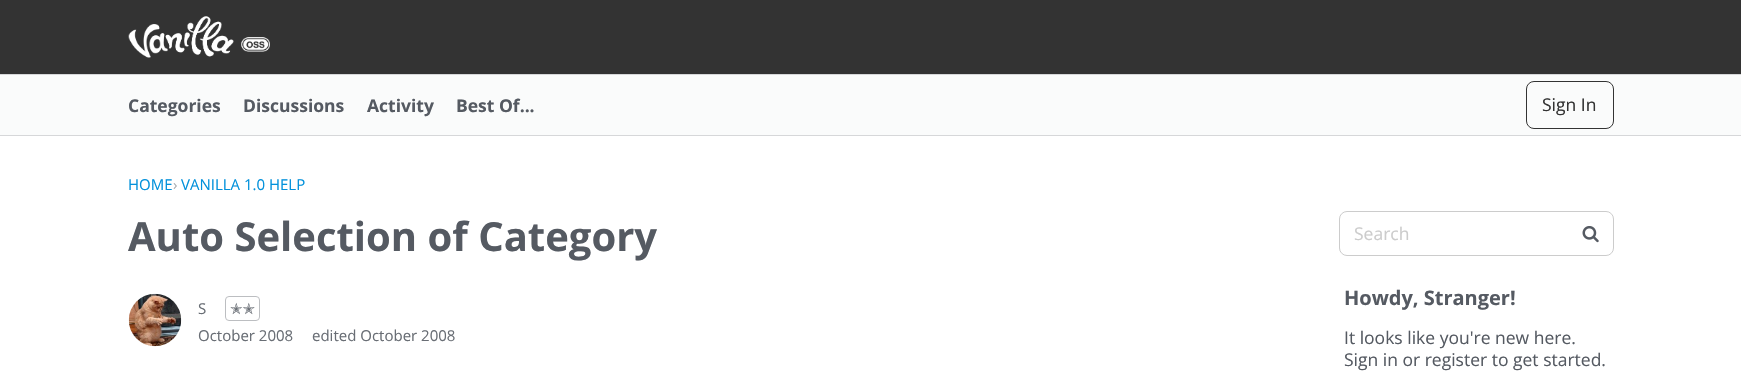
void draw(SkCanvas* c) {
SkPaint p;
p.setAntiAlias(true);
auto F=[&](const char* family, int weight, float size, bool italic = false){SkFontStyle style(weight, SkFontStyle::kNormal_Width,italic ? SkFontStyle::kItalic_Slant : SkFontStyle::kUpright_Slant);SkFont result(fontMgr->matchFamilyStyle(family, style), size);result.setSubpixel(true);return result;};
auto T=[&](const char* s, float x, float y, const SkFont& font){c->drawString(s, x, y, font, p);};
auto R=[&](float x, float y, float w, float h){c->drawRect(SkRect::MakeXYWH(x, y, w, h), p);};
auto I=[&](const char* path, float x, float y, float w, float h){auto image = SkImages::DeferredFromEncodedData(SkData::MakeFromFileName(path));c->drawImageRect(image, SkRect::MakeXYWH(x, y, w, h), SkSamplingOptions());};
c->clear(0xffffffff);
p.setColor(0xff333333);
R(0,0,1741,74);
p.setColor(0xffd6d7d9);
R(0,74,1741,1);
I("1.png",128,16,142,42);
p.setColor(0xfffafbfb);
R(0,75,1741,60);
p.setColor(0xffd6d7d9);
R(0,135,1741,1);
auto f1 = F("Open Sans",700,17.5);
p.setColor(0xff555a62);
T("Categories",128,112,f1);
T("Discussions",243,112,f1);
T("Activity",367,112,f1);
T("Best Of...",456,112,f1);
p.setStroke(true);
p.setStrokeWidth(1);
p.setColor(0xff333333);
c->drawRoundRect(SkRect::MakeXYWH(1526.5,81.5,87,47),7.5,7.5,p);
auto f2 = F("Open Sans",400,17.5);
p.setStroke(false);
T("Sign In",1542,111,f2);
auto f3 = F("Open Sans",400,15);
p.setColor(0xff0291db);
T("HOME",128,190,f3);
p.setColor(0xffaaadb1);
T("›",173,190,f3);
p.setColor(0xff0291db);
T("VANILLA 1.0 HELP",181,190,f3);
auto f4 = F("Open Sans",700,40);
p.setColor(0xff555a62);
T("Auto Selection of Category",128,251,f4);
I("2.png",128,293,54,54);
p.setColor(0xff696e75);
T("S",198,314,f3);
p.setStroke(true);
p.setColor(0xffbcbec1);
c->drawRoundRect(SkRect::MakeXYWH(225.5,296.5,34,24),3.5,3.5,p);
auto f5 = F("DejaVu Sans",400,15);
p.setStroke(false);
p.setColor(0xff696e75);
T("✭✭",230,314,f5);
T("October 2008",198,341,f3);
T("edited October 2008",312,341,f3);
p.setStroke(true);
p.setColor(0xffcccccc);
c->drawRoundRect(SkRect::MakeXYWH(1339.5,211.5,274,44),7.5,7.5,p);
p.setStroke(false);
T("Search",1354,240,f2);
I("3.png",1582,226,17,17);
auto f6 = F("Open Sans",700,20);
p.setColor(0xff555a62);
T("Howdy, Stranger!",1344,305,f6);
T("It looks like you're new here.",1344,344,f2);
T("Sign in or register to get started.",1344,366,f2);
}
